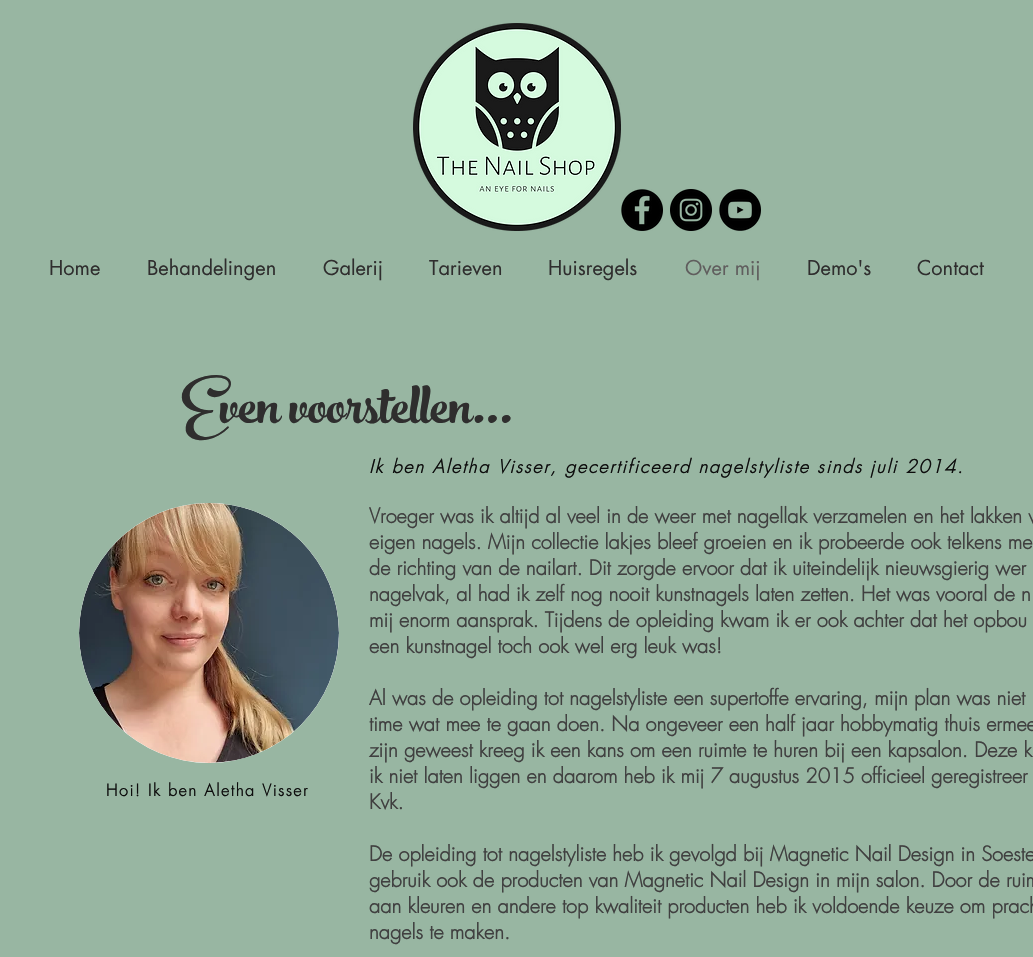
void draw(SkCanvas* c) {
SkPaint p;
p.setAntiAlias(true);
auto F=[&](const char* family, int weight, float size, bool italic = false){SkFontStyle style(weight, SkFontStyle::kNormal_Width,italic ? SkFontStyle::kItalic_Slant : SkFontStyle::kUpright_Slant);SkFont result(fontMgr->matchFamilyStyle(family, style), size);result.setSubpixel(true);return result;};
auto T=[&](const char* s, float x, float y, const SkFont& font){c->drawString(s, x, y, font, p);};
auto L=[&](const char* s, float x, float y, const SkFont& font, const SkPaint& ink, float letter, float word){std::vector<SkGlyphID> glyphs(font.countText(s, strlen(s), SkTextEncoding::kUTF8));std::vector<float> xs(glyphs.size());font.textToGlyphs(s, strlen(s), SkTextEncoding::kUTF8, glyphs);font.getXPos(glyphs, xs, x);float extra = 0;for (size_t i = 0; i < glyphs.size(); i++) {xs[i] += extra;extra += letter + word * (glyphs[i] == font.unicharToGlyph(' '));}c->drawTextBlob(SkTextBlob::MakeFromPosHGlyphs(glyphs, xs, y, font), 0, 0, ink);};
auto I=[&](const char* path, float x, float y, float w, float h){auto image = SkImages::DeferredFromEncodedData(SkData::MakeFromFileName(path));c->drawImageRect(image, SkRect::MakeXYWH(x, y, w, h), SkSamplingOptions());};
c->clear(0xff98b6a2);
I("1.png",413,23,208,208);
I("2.png",621,189,42,42);
I("3.png",670,189,42,42);
I("4.png",719,189,42,42);
auto f1 = F("futura",400,20);
p.setColor(0xff2f2e2e);
T("Home",49,275,f1);
T("Behandelingen",147,275,f1);
T("Galerij",323,275,f1);
T("Tarieven",429,275,f1);
T("Huisregels",548,275,f1);
p.setColor(0xff605e5e);
T("Over mij",685,275,f1);
p.setColor(0xff2f2e2e);
T("Demo's",807,275,f1);
T("Contact",917,275,f1);
auto f2 = F("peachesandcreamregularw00",400,80);
T("Even voorstellen...",182,423,f2);
auto f3 = F("futura",700,18,true);
p.setColor(0xff0d0d0d);
L("Ik ben Aletha Visser, gecertificeerd nagelstyliste sinds juli 2014.",369,473,f3,p,1.8,0);
p.setColor(0xffffffff);
c->drawCircle(209,633,130,p);
I("5.png",79,503,260,260);
auto f4 = F("futura",700,20);
p.setColor(0xff404040);
T("Vroeger was ik altijd al veel in de weer met nagellak verzamelen en het lakken v",369,523,f4);
T("eigen nagels. Mijn collectie lakjes bleef groeien en ik probeerde ook telkens me",369,549,f4);
T("de richting van de nailart. Dit zorgde ervoor dat ik uiteindelijk nieuwsgierig wer",369,575,f4);
T("nagelvak, al had ik zelf nog nooit kunstnagels laten zetten. Het was vooral de n",369,601,f4);
T("mij enorm aansprak. Tijdens de opleiding kwam ik er ook achter dat het opbou",369,627,f4);
T("een kunstnagel toch ook wel erg leuk was!",369,653,f4);
T("Al was de opleiding tot nagelstyliste een supertoffe ervaring, mijn plan was niet",369,705,f4);
T("time wat mee te gaan doen. Na ongeveer een half jaar hobbymatig thuis ermee",369,731,f4);
T("zijn geweest kreeg ik een kans om een ruimte te huren bij een kapsalon. Deze k",369,757,f4);
T("ik niet laten liggen en daarom heb ik mij 7 augustus 2015 officieel geregistreer",369,783,f4);
T("Kvk.",369,809,f4);
T("De opleiding tot nagelstyliste heb ik gevolgd bij Magnetic Nail Design in Soeste",369,861,f4);
T("gebruik ook de producten van Magnetic Nail Design in mijn salon. Door de ruim",369,887,f4);
T("aan kleuren en andere top kwaliteit producten heb ik voldoende keuze om prach",369,913,f4);
T("nagels te maken.",369,939,f4);
auto f5 = F("futura",700,16);
p.setColor(0xff0d0d0d);
L("Hoi! Ik ben Aletha Visser",106,796,f5,p,1.6,0);
}
